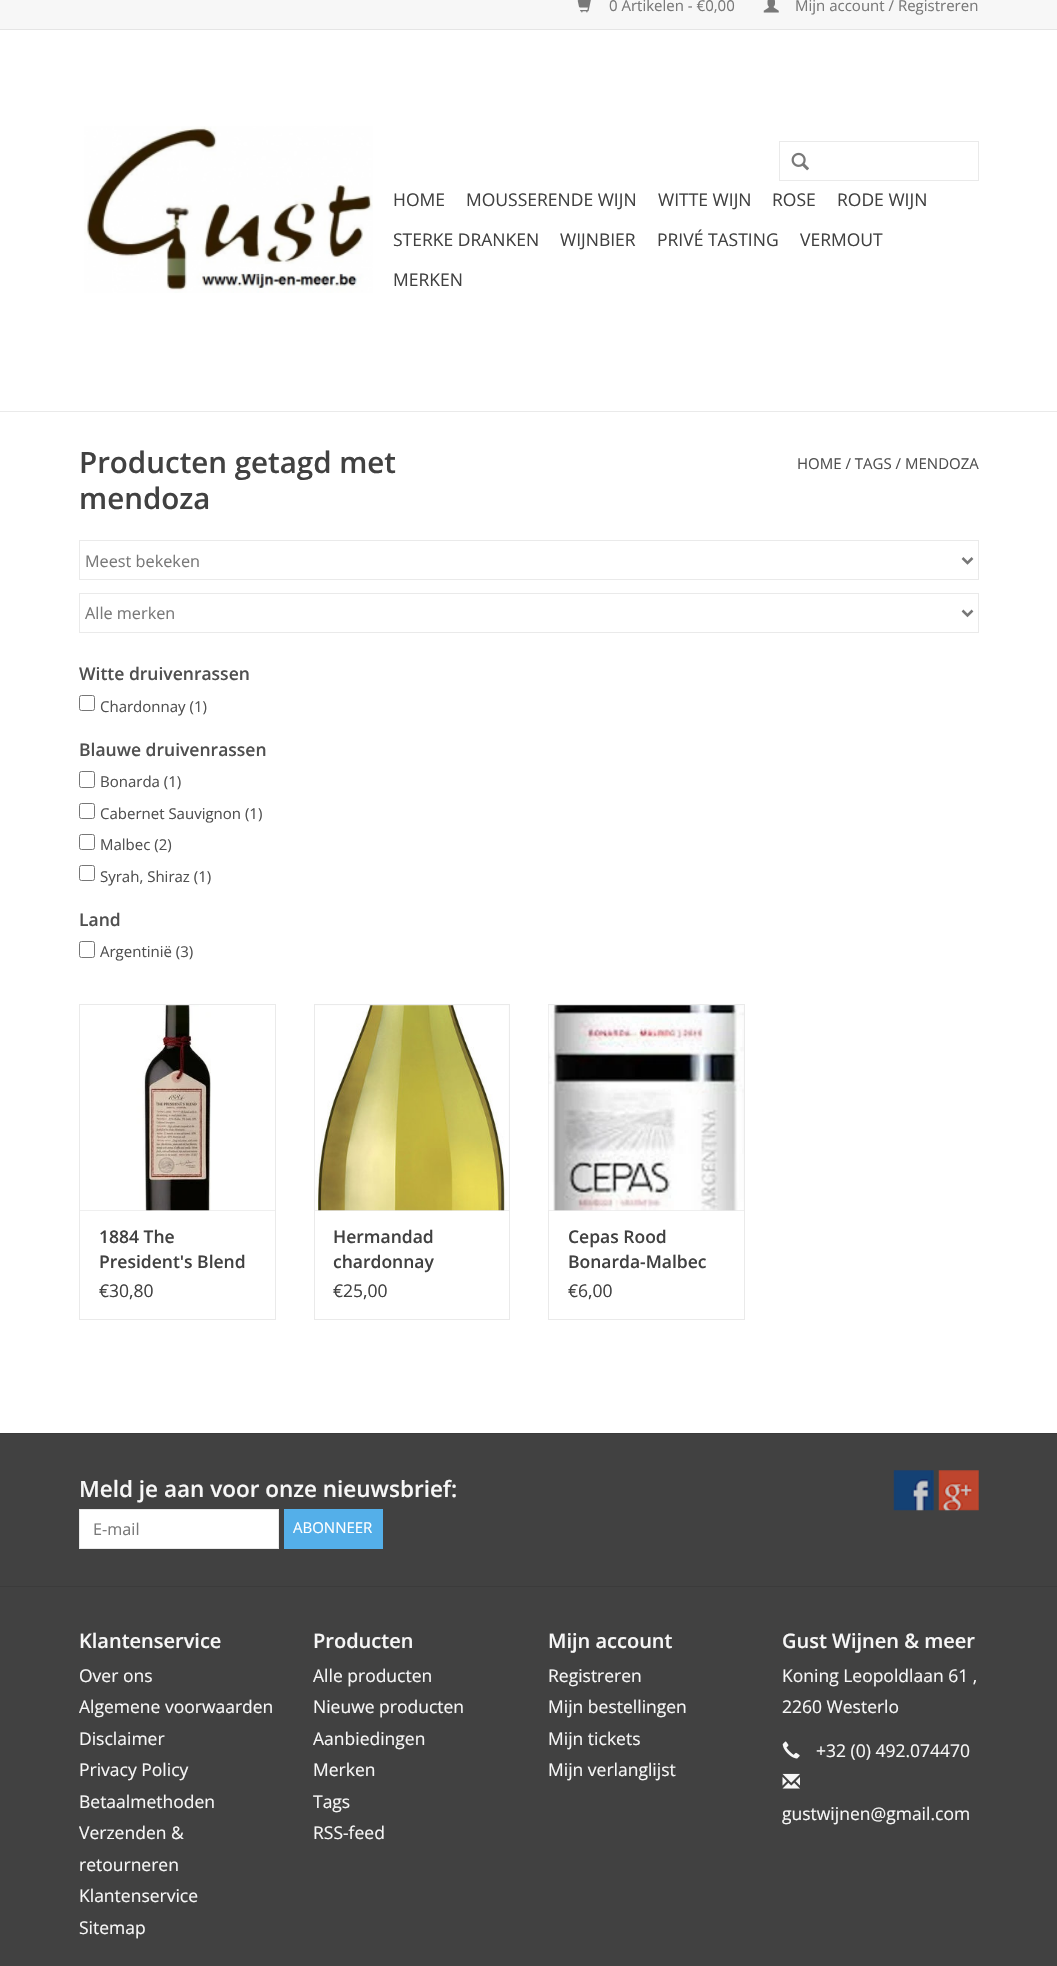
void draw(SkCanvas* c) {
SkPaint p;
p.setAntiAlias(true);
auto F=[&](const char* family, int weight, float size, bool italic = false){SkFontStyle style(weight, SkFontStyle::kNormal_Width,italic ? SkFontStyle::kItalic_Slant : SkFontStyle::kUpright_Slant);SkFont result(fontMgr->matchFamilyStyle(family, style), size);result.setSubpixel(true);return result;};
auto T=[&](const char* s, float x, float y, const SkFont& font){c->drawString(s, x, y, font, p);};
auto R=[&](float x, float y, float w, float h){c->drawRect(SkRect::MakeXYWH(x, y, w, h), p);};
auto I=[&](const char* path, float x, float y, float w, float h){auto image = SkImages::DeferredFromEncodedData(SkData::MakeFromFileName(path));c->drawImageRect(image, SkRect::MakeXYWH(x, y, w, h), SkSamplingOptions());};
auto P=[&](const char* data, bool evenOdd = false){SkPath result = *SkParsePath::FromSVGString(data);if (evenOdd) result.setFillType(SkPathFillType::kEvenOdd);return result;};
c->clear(0xffffffff);
p.setColor(0xffeaeaea);
R(0,411,1057,1);
p.setColor(0xfff7f7f7);
R(0,0,1057,29);
p.setColor(0xffe5e5e5);
R(0,29,1057,1);
I("1.png",577,0,14,13);
auto f1 = F("Open Sans",400,15);
p.setColor(0xff797979);
T("0 Artikelen - €0,00",609,11,f1);
I("2.png",763,0,16,13);
T("Mijn account / Registreren",795,11,f1);
I("3.png",84,126,289,167);
p.setStroke(true);
p.setStrokeWidth(1);
p.setColor(0xffeaeaea);
c->drawRect(SkRect::MakeXYWH(779.5,141.5,199,39),p);
I("4.png",791,152,18,19);
auto f2 = F("Open Sans",400,17.5);
p.setStroke(false);
p.setColor(0xff414141);
T("HOME",393,206,f2);
T("MOUSSERENDE WIJN",466,206,f2);
T("WITTE WIJN",658,206,f2);
T("ROSE",772,206,f2);
T("RODE WIJN",837,206,f2);
T("STERKE DRANKEN",393,246,f2);
T("WIJNBIER",560,246,f2);
T("PRIVÉ TASTING",657,246,f2);
T("VERMOUT",800,246,f2);
T("MERKEN",393,286,f2);
auto f3 = F("Open Sans",600,29.5);
T("Producten getagd met",79,473,f3);
T("mendoza",79,509,f3);
p.setColor(0xff505050);
T("HOME / TAGS / MENDOZA",797,469,f1);
p.setStroke(true);
p.setColor(0xffeaeaea);
c->drawRect(SkRect::MakeXYWH(79.5,540.5,899,39),p);
p.setStrokeWidth(2.5);
p.setColor(0xff777777);
c->drawPath(P("M962.5 558l5 5l5-5"),p);
auto f4 = F("Open Sans",400,16.25);
p.setStroke(false);
p.setColor(0xff797979);
T("Meest bekeken",85,567,f4);
p.setStroke(true);
p.setStrokeWidth(1);
p.setColor(0xffeaeaea);
c->drawRect(SkRect::MakeXYWH(79.5,593.5,899,39),p);
p.setStrokeWidth(2.5);
p.setColor(0xff777777);
c->drawPath(P("M962.5 610.5l5 5l5-5"),p);
p.setStroke(false);
p.setColor(0xff797979);
T("Alle merken",85,619,f4);
auto f5 = F("Open Sans",600,17.5);
p.setColor(0xff505050);
T("Witte druivenrassen",79,680,f5);
p.setStroke(true);
p.setStrokeWidth(1);
p.setColor(0xff767676);
c->drawRoundRect(SkRect::MakeXYWH(79.5,695.5,15,15),2,2,p);
p.setStroke(false);
p.setColor(0xff505050);
T("Chardonnay (1)",100,712,f1);
T("Blauwe druivenrassen",79,756,f5);
p.setStroke(true);
p.setColor(0xff767676);
c->drawRoundRect(SkRect::MakeXYWH(79.5,771.5,15,16),2,2,p);
p.setStroke(false);
p.setColor(0xff505050);
T("Bonarda (1)",100,787,f1);
p.setStroke(true);
p.setColor(0xff767676);
c->drawRoundRect(SkRect::MakeXYWH(79.5,803.5,15,15),2,2,p);
p.setStroke(false);
p.setColor(0xff505050);
T("Cabernet Sauvignon (1)",100,819,f1);
p.setStroke(true);
p.setColor(0xff767676);
c->drawRoundRect(SkRect::MakeXYWH(79.5,834.5,15,15),2,2,p);
p.setStroke(false);
p.setColor(0xff505050);
T("Malbec (2)",100,850,f1);
p.setStroke(true);
p.setColor(0xff767676);
c->drawRoundRect(SkRect::MakeXYWH(79.5,865.5,15,15),2,2,p);
p.setStroke(false);
p.setColor(0xff505050);
T("Syrah, Shiraz (1)",100,882,f1);
T("Land",79,926,f5);
p.setStroke(true);
p.setColor(0xff767676);
c->drawRoundRect(SkRect::MakeXYWH(79.5,941.5,15,16),2,2,p);
p.setStroke(false);
p.setColor(0xff505050);
T("Argentinië (3)",100,957,f1);
p.setColor(0xffeaeaea);
R(79,1004,197,1);
R(275,1004,1,206);
R(79,1004,1,206);
p.setStroke(true);
c->drawRect(SkRect::MakeXYWH(79.5,1210.5,196,109),p);
I("5.png",80,1005,195,206);
p.setStroke(false);
p.setColor(0xff414141);
T("1884 The",99,1243,f5);
T("President's Blend",99,1268,f5);
T("€30,80",99,1297,f2);
p.setColor(0xfff7f7f7);
R(315,1005,194,205);
p.setColor(0xffeaeaea);
R(314,1004,196,1);
R(509,1004,1,206);
R(314,1004,1,206);
p.setStroke(true);
c->drawRect(SkRect::MakeXYWH(314.5,1210.5,195,109),p);
I("6.png",315,1005,194,206);
p.setStroke(false);
p.setColor(0xff414141);
T("Hermandad",333,1243,f5);
T("chardonnay",333,1268,f5);
T("€25,00",333,1297,f2);
p.setColor(0xfff7f7f7);
R(549,1005,195,205);
p.setColor(0xffeaeaea);
R(548,1004,197,1);
R(744,1004,1,206);
R(548,1004,1,206);
p.setStroke(true);
c->drawRect(SkRect::MakeXYWH(548.5,1210.5,196,109),p);
I("7.png",548,1005,196,206);
p.setStroke(false);
p.setColor(0xff414141);
T("Cepas Rood",568,1243,f5);
T("Bonarda-Malbec",568,1268,f5);
T("€6,00",568,1297,f2);
R(0,1434,1057,532);
p.setColor(0xff3b3b3b);
R(0,1433,1057,1);
auto f6 = F("Open Sans",600,22.5);
p.setColor(0xfff7f7f7);
T("Meld je aan voor onze nieuwsbrief:",79,1497,f6);
p.setColor(0xffffffff);
c->drawRect(SkRect::MakeXYWH(79.5,1509.5,199,39),p);
p.setStroke(true);
p.setColor(0xffe9e9e9);
c->drawRect(SkRect::MakeXYWH(79.5,1509.5,199,39),p);
p.setStroke(false);
p.setColor(0xff797979);
T("E-mail",93,1535,f4);
p.setColor(0xff54afe9);
R(284,1509,99,40);
p.setColor(0xffffffff);
T("ABONNEER",293,1533,f1);
I("8.png",893,1470,41,41);
I("9.png",938,1470,41,41);
p.setColor(0xff3b3b3b);
R(0,1586,1057,1);
auto f7 = F("Open Sans",600,20);
p.setColor(0xfff7f7f7);
T("Klantenservice",79,1648,f7);
T("Over ons",79,1682,f2);
T("Algemene voorwaarden",79,1713,f2);
T("Disclaimer",79,1745,f2);
T("Privacy Policy",79,1776,f2);
T("Betaalmethoden",79,1808,f2);
T("Verzenden &",79,1839,f2);
T("retourneren",79,1871,f2);
T("Klantenservice",79,1902,f2);
T("Sitemap",79,1934,f2);
T("Producten",313,1648,f7);
T("Alle producten",313,1682,f2);
T("Nieuwe producten",313,1713,f2);
T("Aanbiedingen",313,1745,f2);
T("Merken",313,1776,f2);
T("Tags",313,1808,f2);
T("RSS-feed",313,1839,f2);
T("Mijn account",548,1648,f7);
T("Registreren",548,1682,f2);
T("Mijn bestellingen",548,1713,f2);
T("Mijn tickets",548,1745,f2);
T("Mijn verlanglijst",548,1776,f2);
T("Gust Wijnen & meer",782,1648,f7);
T("Koning Leopoldlaan 61 ,",782,1682,f2);
T("2260 Westerlo",782,1713,f2);
I("10.png",782,1741,18,18);
T("+32 (0) 492.074470",816,1757,f2);
I("11.png",782,1773,18,16);
T("gustwijnen@gmail.com",782,1820,f2);
}
